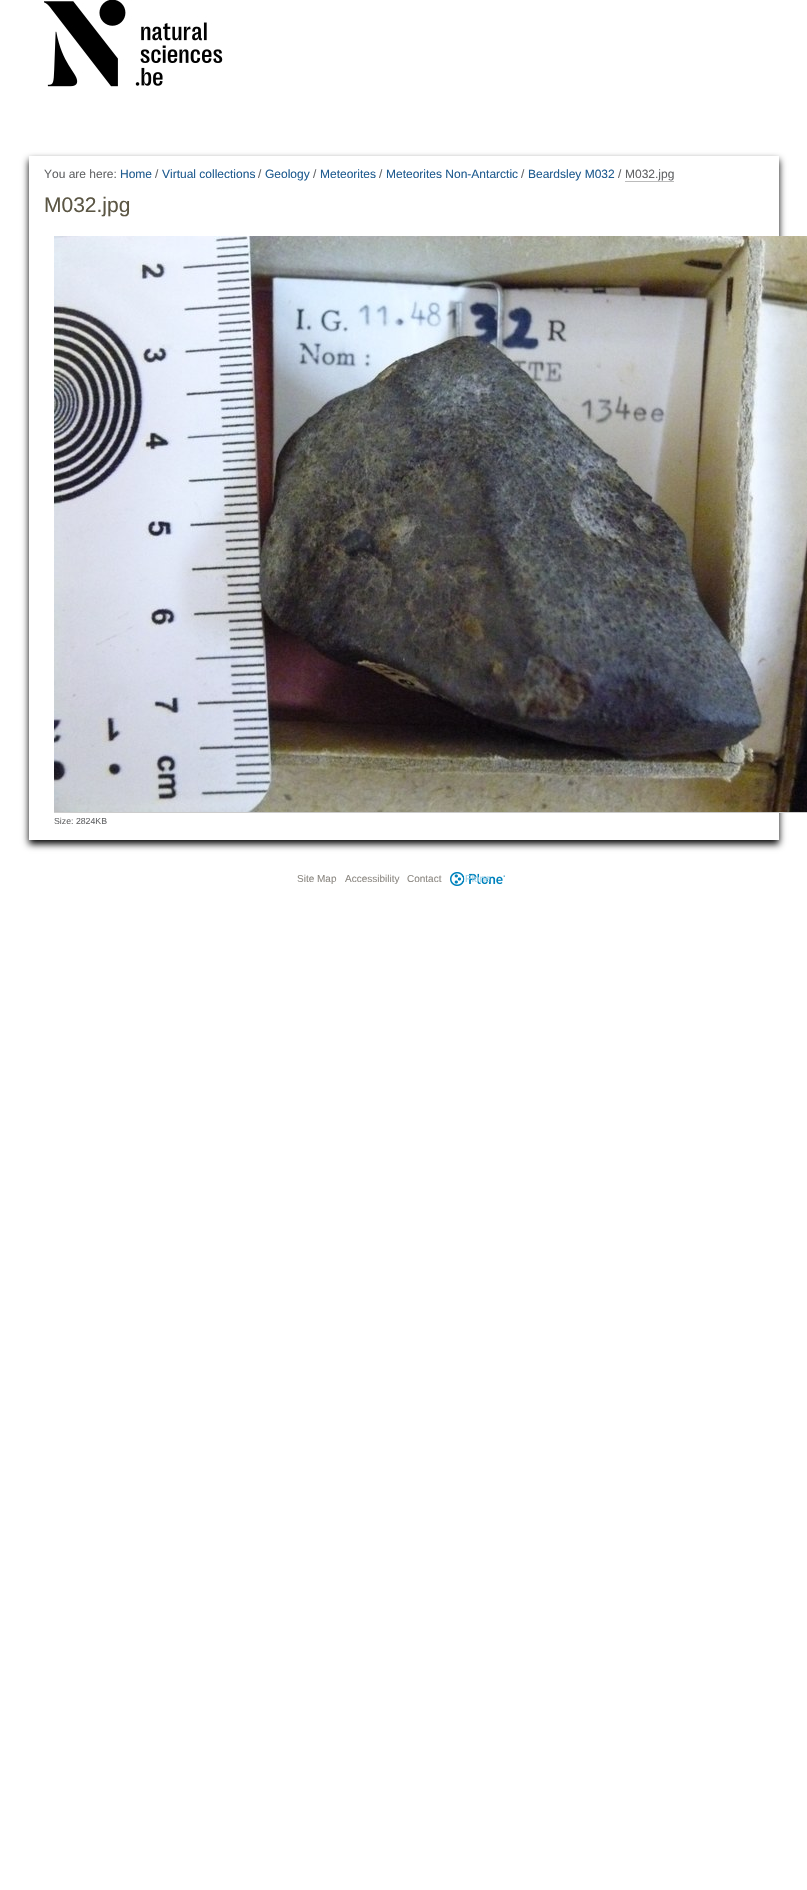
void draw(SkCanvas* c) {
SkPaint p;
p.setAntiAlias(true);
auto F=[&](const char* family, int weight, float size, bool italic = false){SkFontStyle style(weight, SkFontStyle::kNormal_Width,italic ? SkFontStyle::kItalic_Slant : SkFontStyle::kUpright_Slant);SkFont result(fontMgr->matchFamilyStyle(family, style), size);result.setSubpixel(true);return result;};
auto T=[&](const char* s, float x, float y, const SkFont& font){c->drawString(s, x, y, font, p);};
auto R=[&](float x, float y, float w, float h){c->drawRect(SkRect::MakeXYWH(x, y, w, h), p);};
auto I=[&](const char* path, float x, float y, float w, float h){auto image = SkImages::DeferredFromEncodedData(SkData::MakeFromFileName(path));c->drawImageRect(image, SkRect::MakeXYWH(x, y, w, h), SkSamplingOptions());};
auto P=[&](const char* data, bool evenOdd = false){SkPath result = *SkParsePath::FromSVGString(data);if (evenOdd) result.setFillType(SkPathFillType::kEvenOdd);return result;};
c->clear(0xffffffff);
I("1.png",44,0,179,87);
c->save();
c->clipPath(P("M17 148h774v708h-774zm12 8h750v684h-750z",true),true);
p.setColor(0xff000000);
p.setMaskFilter(SkMaskFilter::MakeBlur(kNormal_SkBlurStyle, 3.5));
c->drawRect(SkRect::MakeXYWH(29,160,750,684),p);
p.setMaskFilter(nullptr);
c->restore();
auto f1 = F("Liberation Sans",400,12);
p.setColor(0xff636466);
T("You are here:",44,178,f1);
p.setColor(0xff205c90);
T("Home",120,178,f1);
p.setColor(0xff636466);
T("/",155,178,f1);
p.setColor(0xff205c90);
T("Virtual collections",162,178,f1);
p.setColor(0xff636466);
T("/",258,178,f1);
p.setColor(0xff205c90);
T("Geology",265,178,f1);
p.setColor(0xff636466);
T("/",313,178,f1);
p.setColor(0xff205c90);
T("Meteorites",320,178,f1);
p.setColor(0xff636466);
T("/",379,178,f1);
p.setColor(0xff205c90);
T("Meteorites Non-Antarctic",386,178,f1);
p.setColor(0xff636466);
T("/",521,178,f1);
p.setColor(0xff205c90);
T("Beardsley M032",528,178,f1);
p.setColor(0xff636466);
T("/",618,178,f1);
T("M032.jpg",625,178,f1);
p.setColor(0xffbbbbbb);
R(625,181,49,1);
auto f2 = F("Liberation Sans",400,21);
p.setColor(0xff5b5644);
T("M032.jpg",44,212,f2);
p.setColor(0xffcccccc);
R(54,812,753,1);
I("2.png",54,236,753,576);
auto f3 = F("Liberation Sans",400,8.75);
p.setColor(0xff636466);
T("Size: 2824KB",54,824,f3);
auto f4 = F("Liberation Sans",400,10);
p.setColor(0xff8c8882);
T("Site Map",297,882,f4);
T("Accessibility",345,882,f4);
T("Contact",407,882,f4);
I("3.png",450,872,55,14);
p.setColor(0xffa1d1e7);
T("Plone",465,882,f4);
}
